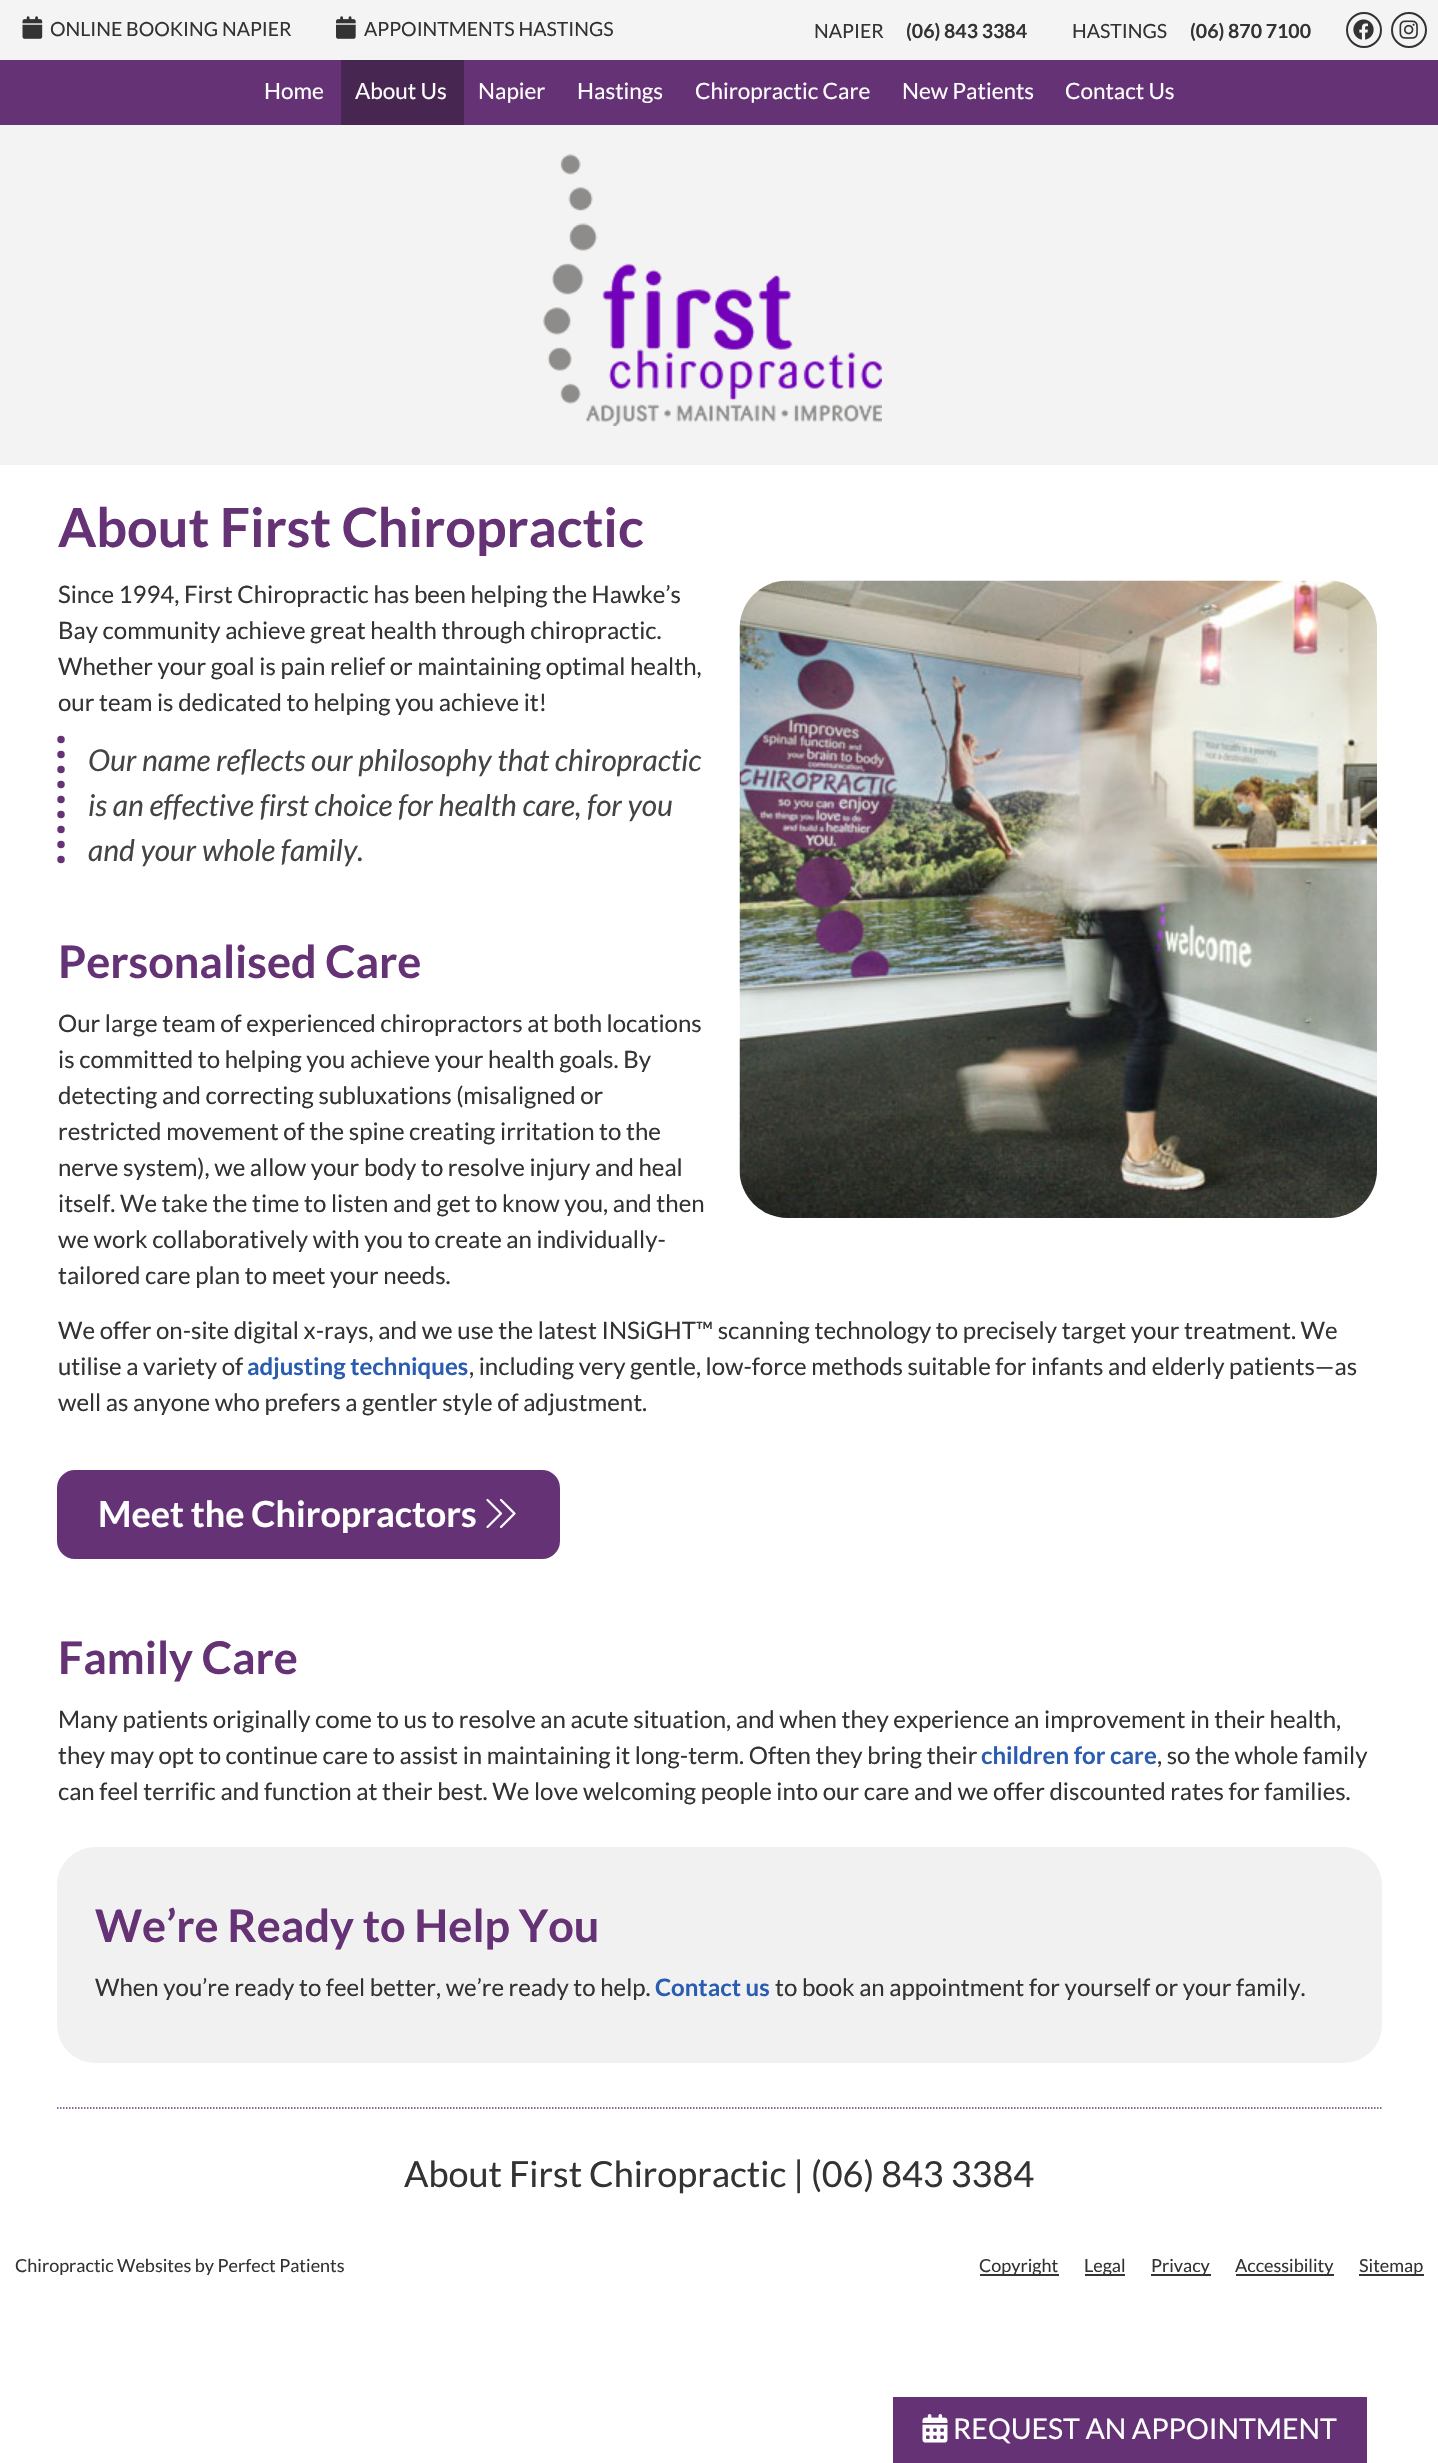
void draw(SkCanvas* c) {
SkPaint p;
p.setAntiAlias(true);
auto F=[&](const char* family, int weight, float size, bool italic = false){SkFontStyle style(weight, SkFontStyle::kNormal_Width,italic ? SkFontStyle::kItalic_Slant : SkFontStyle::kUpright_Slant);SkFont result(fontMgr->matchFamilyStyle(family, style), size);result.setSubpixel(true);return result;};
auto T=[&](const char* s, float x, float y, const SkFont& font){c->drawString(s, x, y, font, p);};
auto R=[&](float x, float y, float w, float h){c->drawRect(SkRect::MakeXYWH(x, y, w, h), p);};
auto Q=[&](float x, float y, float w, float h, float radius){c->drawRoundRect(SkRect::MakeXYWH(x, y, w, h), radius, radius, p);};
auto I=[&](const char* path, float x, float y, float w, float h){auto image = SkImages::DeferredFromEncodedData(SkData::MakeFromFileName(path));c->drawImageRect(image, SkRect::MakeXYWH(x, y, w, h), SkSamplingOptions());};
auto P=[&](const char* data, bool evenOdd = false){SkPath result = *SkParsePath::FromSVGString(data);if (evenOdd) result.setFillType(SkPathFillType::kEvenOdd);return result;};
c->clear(0xffffffff);
p.setColor(0xfff4f4f4);
R(0,0,1438,60);
I("1.png",22,16,21,23);
auto f1 = F("Lato",400,19.5);
p.setColor(0xff333333);
T("ONLINE BOOKING NAPIER",50,36,f1);
I("2.png",336,16,20,23);
T("APPOINTMENTS HASTINGS",364,36,f1);
T("NAPIER",814,38,f1);
auto f2 = F("Lato",700,19.5);
T("(06) 843 3384",906,38,f2);
T("HASTINGS",1072,38,f1);
T("(06) 870 7100",1190,38,f2);
p.setStroke(true);
p.setStrokeWidth(2);
c->drawCircle(1364,30,17,p);
I("3.png",1353,19,21,21);
c->drawCircle(1409,30,17,p);
I("4.png",1399,20,19,19);
p.setStroke(false);
p.setColor(0xff653276);
R(0,60,1438,65);
auto f3 = F("Lato",400,22.5);
p.setColor(0xffffffff);
T("Home",264,99,f3);
p.setColor(0xff472652);
R(341,60,123,65);
p.setColor(0xffffffff);
T("About Us",355,99,f3);
T("Napier",478,99,f3);
T("Hastings",577,99,f3);
T("Chiropractic Care",695,99,f3);
T("New Patients",902,99,f3);
T("Contact Us",1065,99,f3);
p.setColor(0xfff3f3f3);
R(0,125,1438,340);
I("5.png",543,154,339,272);
auto f4 = F("Lato",700,54);
p.setColor(0xff653276);
T("About First Chiropractic",58,547,f4);
auto f5 = F("Lato",400,24);
p.setColor(0xff333333);
T("Since 1994, First Chiropractic has been helping the Hawke’s",58,603,f5);
I("6.png",739,580,638,638);
T("Bay community achieve great health through chiropractic.",58,639,f5);
T("Whether your goal is pain relief or maintaining optimal health,",58,675,f5);
T("our team is dedicated to helping you achieve it!",58,711,f5);
p.setStroke(true);
p.setStrokeWidth(7.5);
p.setStrokeCap(SkPaint::kRound_Cap);
p.setColor(0xff653276);
p.setPathEffect(SkDashPathEffect::Make({{0,15}}, 0));
c->drawPath(P("M61 739.5v135"),p);
p.setPathEffect(nullptr);
auto f6 = F("Lato",400,30,true);
p.setStroke(false);
p.setColor(0xff444444);
T("Our name reflects our philosophy that chiropractic",88,771,f6);
T("is an effective first choice for health care, for you",88,816,f6);
T("and your whole family.",88,861,f6);
auto f7 = F("Lato",700,45);
p.setColor(0xff653276);
T("Personalised Care",58,978,f7);
p.setColor(0xff333333);
T("Our large team of experienced chiropractors at both locations",58,1032,f5);
T("is committed to helping you achieve your health goals. By",58,1068,f5);
T("detecting and correcting subluxations (misaligned or",58,1104,f5);
T("restricted movement of the spine creating irritation to the",58,1140,f5);
T("nerve system), we allow your body to resolve injury and heal",58,1176,f5);
T("itself. We take the time to listen and get to know you, and then",58,1212,f5);
T("we work collaboratively with you to create an individually-",58,1248,f5);
T("tailored care plan to meet your needs.",58,1284,f5);
T("We offer on-site digital x-rays, and we use the latest INSiGHT™ scanning technology to precisely target your treatment. We",58,1339,f5);
T("utilise a variety of",58,1375,f5);
auto f8 = F("Lato",700,24);
p.setColor(0xff2a5db0);
T("adjusting techniques",247,1375,f8);
p.setColor(0xff333333);
T(", including very gentle, low-force methods suitable for infants and elderly patients—as",469,1375,f5);
T("well as anyone who prefers a gentler style of adjustment.",58,1411,f5);
p.setColor(0xff653276);
c->drawRoundRect(SkRect::MakeXYWH(58.5,1471.5,500,86),16.5,16.5,p);
p.setStroke(true);
p.setStrokeWidth(3);
p.setStrokeCap(SkPaint::kButt_Cap);
c->drawRoundRect(SkRect::MakeXYWH(58.5,1471.5,500,86),16.5,16.5,p);
auto f9 = F("Lato",700,36);
p.setStroke(false);
p.setColor(0xffffffff);
T("Meet the Chiropractors",98,1527,f9);
I("7.png",486,1498,30,31);
p.setColor(0xff653276);
T("Family Care",58,1674,f7);
p.setColor(0xff333333);
T("Many patients originally come to us to resolve an acute situation, and when they experience an improvement in their health,",58,1728,f5);
T("they may opt to continue care to assist in maintaining it long-term. Often they bring their",58,1764,f5);
p.setColor(0xff2a5db0);
T("children for care",981,1764,f8);
p.setColor(0xff333333);
T(", so the whole family",1157,1764,f5);
T("can feel terrific and function at their best. We love welcoming people into our care and we offer discounted rates for families.",58,1800,f5);
p.setColor(0xfff1f1f1);
Q(57,1847,1325,216,38);
p.setColor(0xff653276);
T("We’re Ready to Help You",95,1942,f7);
p.setColor(0xff333333);
T("When you’re ready to feel better, we’re ready to help.",95,1996,f5);
p.setColor(0xff2a5db0);
T("Contact us",655,1996,f8);
p.setColor(0xff333333);
T("to book an appointment for yourself or your family.",775,1996,f5);
p.setStroke(true);
p.setStrokeWidth(1.5);
p.setColor(0xff653276);
p.setPathEffect(SkDashPathEffect::Make({{1.5f,1.5f}}, 0));
c->drawPath(P("M57 2108h1324.5"),p);
p.setPathEffect(nullptr);
auto f10 = F("Lato",400,36);
p.setStroke(false);
p.setColor(0xff333333);
T("About First Chiropractic | (06) 843 3384",404,2187,f10);
auto f11 = F("Lato",400,18);
T("Chiropractic Websites by Perfect Patients",15,2272,f11);
R(980,2274,79,2);
T("Copyright",979,2272,f11);
R(1085,2274,40,2);
T("Legal",1084,2272,f11);
R(1151,2274,60,2);
T("Privacy",1151,2272,f11);
R(1236,2274,98,2);
T("Accessibility",1235,2272,f11);
R(1359,2274,65,2);
T("Sitemap",1359,2272,f11);
p.setColor(0xff653276);
R(893,2397,474,66);
I("8.png",922,2414,26,29);
auto f12 = F("Lato",400,28.5);
p.setColor(0xffffffff);
T("REQUEST AN APPOINTMENT",953,2439,f12);
}
